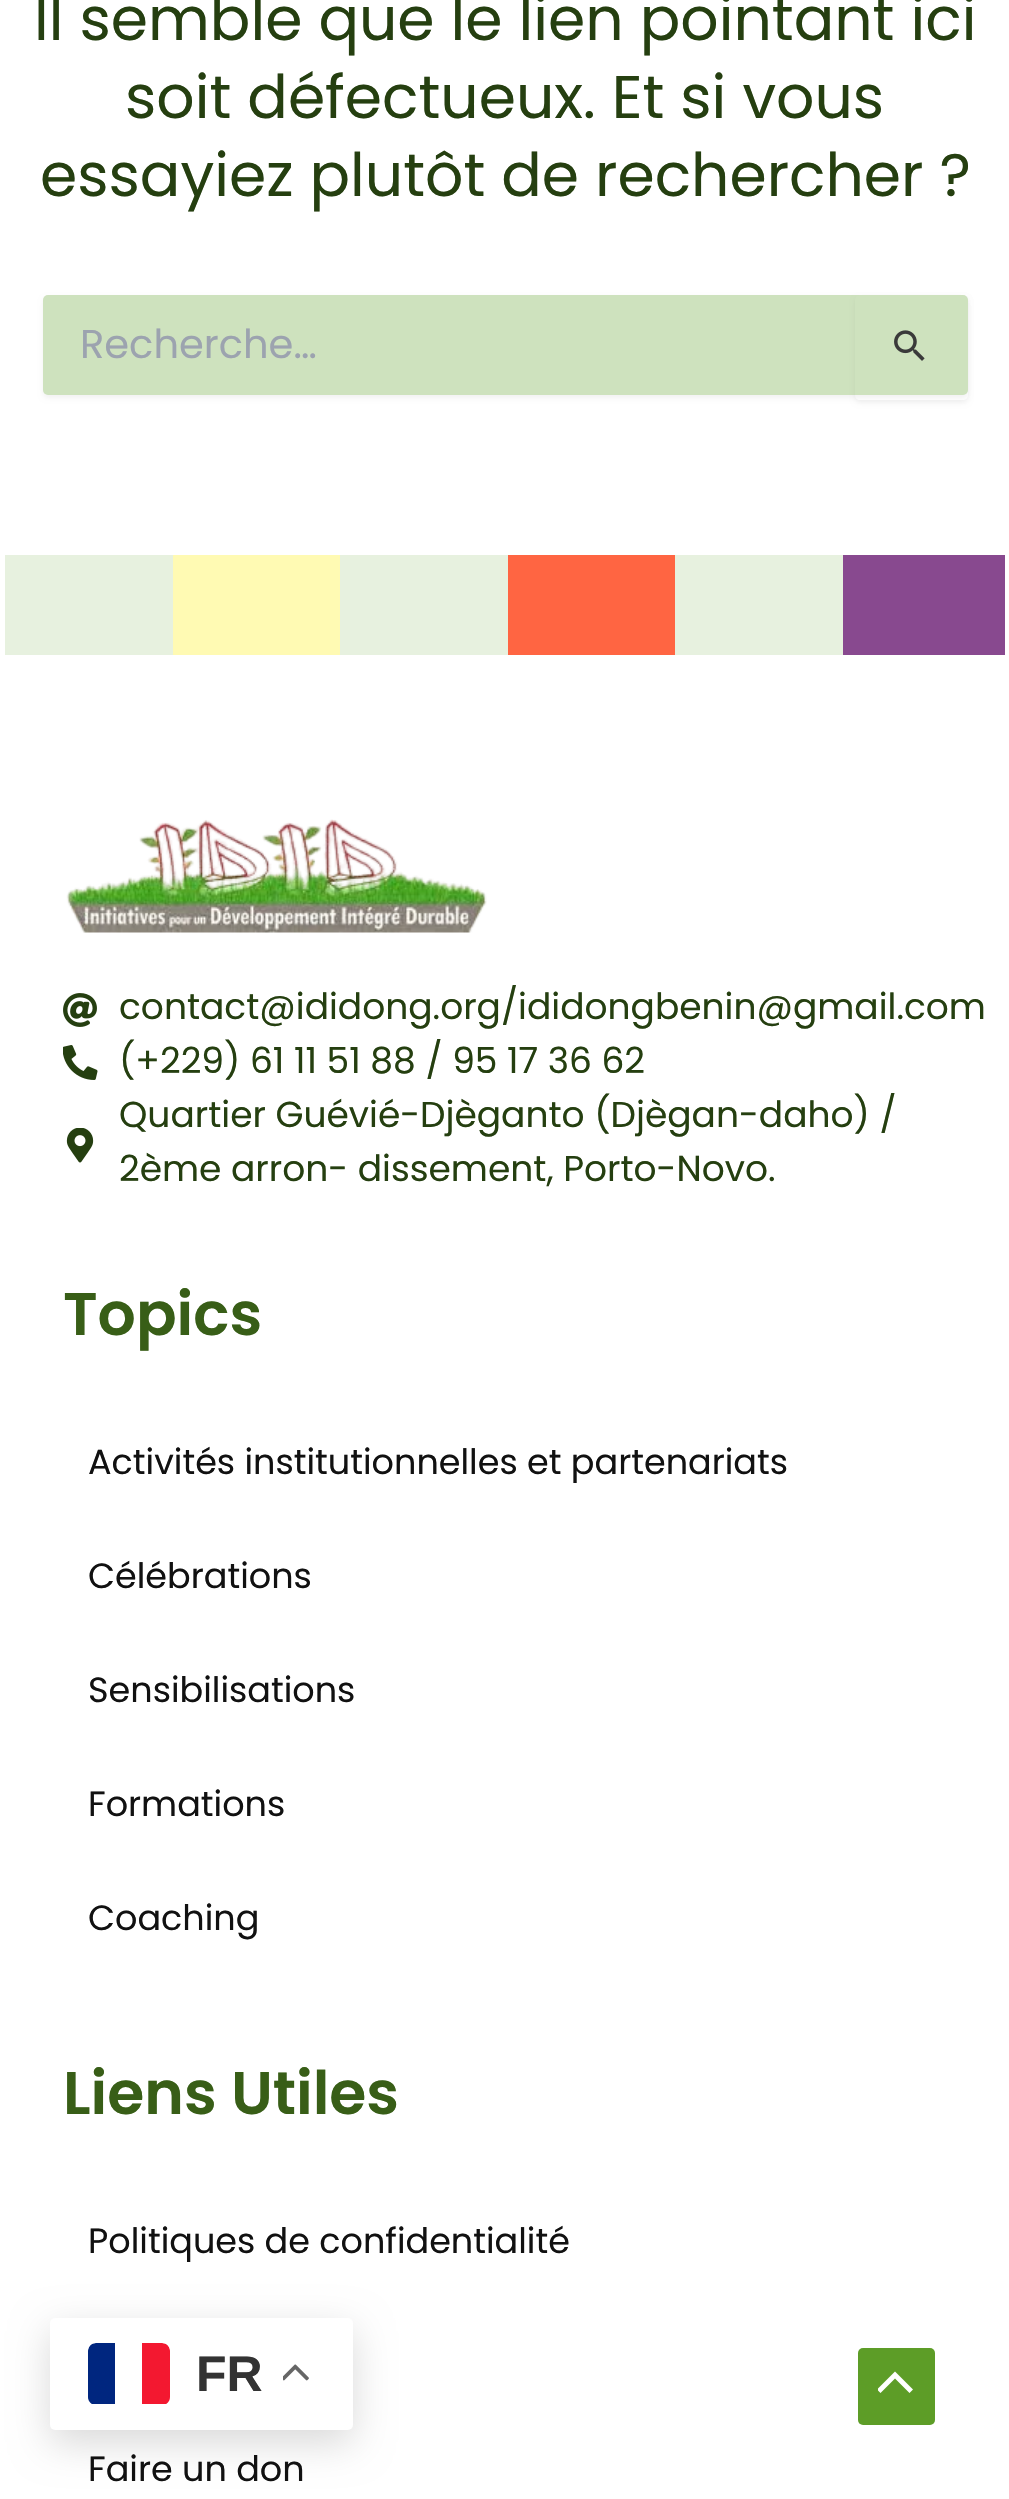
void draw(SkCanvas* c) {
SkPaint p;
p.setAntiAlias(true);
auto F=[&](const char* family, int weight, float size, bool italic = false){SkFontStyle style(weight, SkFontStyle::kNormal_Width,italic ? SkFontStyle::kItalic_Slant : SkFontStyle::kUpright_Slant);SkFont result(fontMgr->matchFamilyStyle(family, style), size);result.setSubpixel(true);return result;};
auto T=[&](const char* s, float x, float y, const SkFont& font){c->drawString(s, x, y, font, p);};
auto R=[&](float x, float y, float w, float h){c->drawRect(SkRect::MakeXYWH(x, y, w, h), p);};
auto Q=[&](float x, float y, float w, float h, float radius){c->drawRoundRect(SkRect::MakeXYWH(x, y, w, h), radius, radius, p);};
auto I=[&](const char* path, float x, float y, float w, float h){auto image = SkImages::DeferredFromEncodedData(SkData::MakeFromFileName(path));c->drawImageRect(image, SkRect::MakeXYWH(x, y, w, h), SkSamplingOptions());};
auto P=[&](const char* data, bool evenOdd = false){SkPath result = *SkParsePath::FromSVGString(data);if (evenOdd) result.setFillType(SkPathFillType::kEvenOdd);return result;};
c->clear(0xffffffff);
auto f1 = F("Poppins",400,60);
p.setColor(0xff253f10);
T("Il semble que le lien pointant ici",34,40,f1);
T("soit défectueux. Et si vous",125,118,f1);
T("essayiez plutôt de rechercher ?",40,196,f1);
p.setColor(0x0d000000);
p.setMaskFilter(SkMaskFilter::MakeBlur(kNormal_SkBlurStyle, 2.5));
c->drawRoundRect(SkRect::MakeXYWH(43,298,925,100),5,5,p);
p.setMaskFilter(nullptr);
p.setColor(0xffcee2be);
Q(43,295,925,100,5);
auto f2 = F("Poppins",400,40);
p.setColor(0xff9ca3af);
T("Recherche…",80,358,f2);
I("1.png",894,330,31,31);
c->save();
c->clipPath(P("M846 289h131v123h-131zm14 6h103c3 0 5 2 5 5v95c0 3-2 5-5 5h-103c-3 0-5-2-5-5v-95c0-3 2-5 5-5z",true),true);
p.setColor(0x0d000000);
p.setMaskFilter(SkMaskFilter::MakeBlur(kNormal_SkBlurStyle, 2.5));
c->drawRoundRect(SkRect::MakeXYWH(855,298,113,105),5,5,p);
p.setMaskFilter(nullptr);
c->restore();
p.setColor(0xffe7f1df);
R(5,555,168,100);
p.setColor(0xfffffab3);
R(173,555,167,100);
p.setColor(0xffe7f1df);
R(340,555,168,100);
p.setColor(0xffff6542);
R(508,555,167,100);
p.setColor(0xffe7f1df);
R(675,555,168,100);
p.setColor(0xff88498f);
R(843,555,162,100);
I("2.png",66,819,421,114);
I("3.png",63,993,34,34);
auto f3 = F("Poppins",400,36);
p.setColor(0xff253f10);
T("contact@ididong.org/ididongbenin@gmail.com",119,1019,f3);
I("4.png",63,1045,35,35);
T("(+229) 61 11 51 88 / 95 17 36 62",119,1073,f3);
I("5.png",66,1128,28,35);
T("Quartier Guévié-Djèganto (Djègan-daho) /",119,1127,f3);
T("2ème arron- dissement, Porto-Novo.",119,1181,f3);
auto f4 = F("Poppins",600,60);
p.setColor(0xff385e17);
T("Topics",63,1335,f4);
auto f5 = F("Poppins",400,35);
p.setColor(0xff111111);
T("Activités institutionnelles et partenariats",88,1474,f5);
T("Célébrations",88,1588,f5);
T("Sensibilisations",88,1702,f5);
T("Formations",88,1816,f5);
T("Coaching",88,1930,f5);
p.setColor(0xff385e17);
T("Liens Utiles",63,2114,f4);
p.setColor(0xff111111);
T("Politiques de confidentialité",88,2253,f5);
T("Faire un don",88,2481,f5);
p.setColor(0x26000000);
p.setMaskFilter(SkMaskFilter::MakeBlur(kNormal_SkBlurStyle, 19));
c->drawRoundRect(SkRect::MakeXYWH(50,2330,303,113),5,5,p);
p.setMaskFilter(nullptr);
p.setColor(0xffffffff);
Q(50,2318,303,112,5);
c->save();
c->clipPath(P("M96 2343h66c4.5 0 8 3.5 8 8v46c0 4.5-3.5 8-8 8h-66c-4.5 0-8-3.5-8-8v-46c0-4.5 3.5-8 8-8z"),true);
p.setColor(0xff00267f);
c->drawPath(P("M96 2343h19v61h-27v-53c0-4.5 3.5-8 8-8z"),p);
p.setColor(0xfff31830);
c->drawPath(P("M142 2343h20c4.5 0 8 3.5 8 8v53h-28z"),p);
c->restore();
auto f6 = F("Liberation Sans",700,50);
p.setColor(0xff333333);
T("FR",196,2391,f6);
I("6.png",283,2364,26,17);
p.setColor(0xff5d9d27);
Q(858,2348,77,77,5);
c->save();
c->clipRect(SkRect::MakeXYWH(878,2365,37,33));
p.setColor(0xffffffff);
c->drawPath(P("M913 2389.5l-18-18l-18 18l3.5 3.5l14.5-14.5l14.5 14.5z"),p);
c->restore();
}
